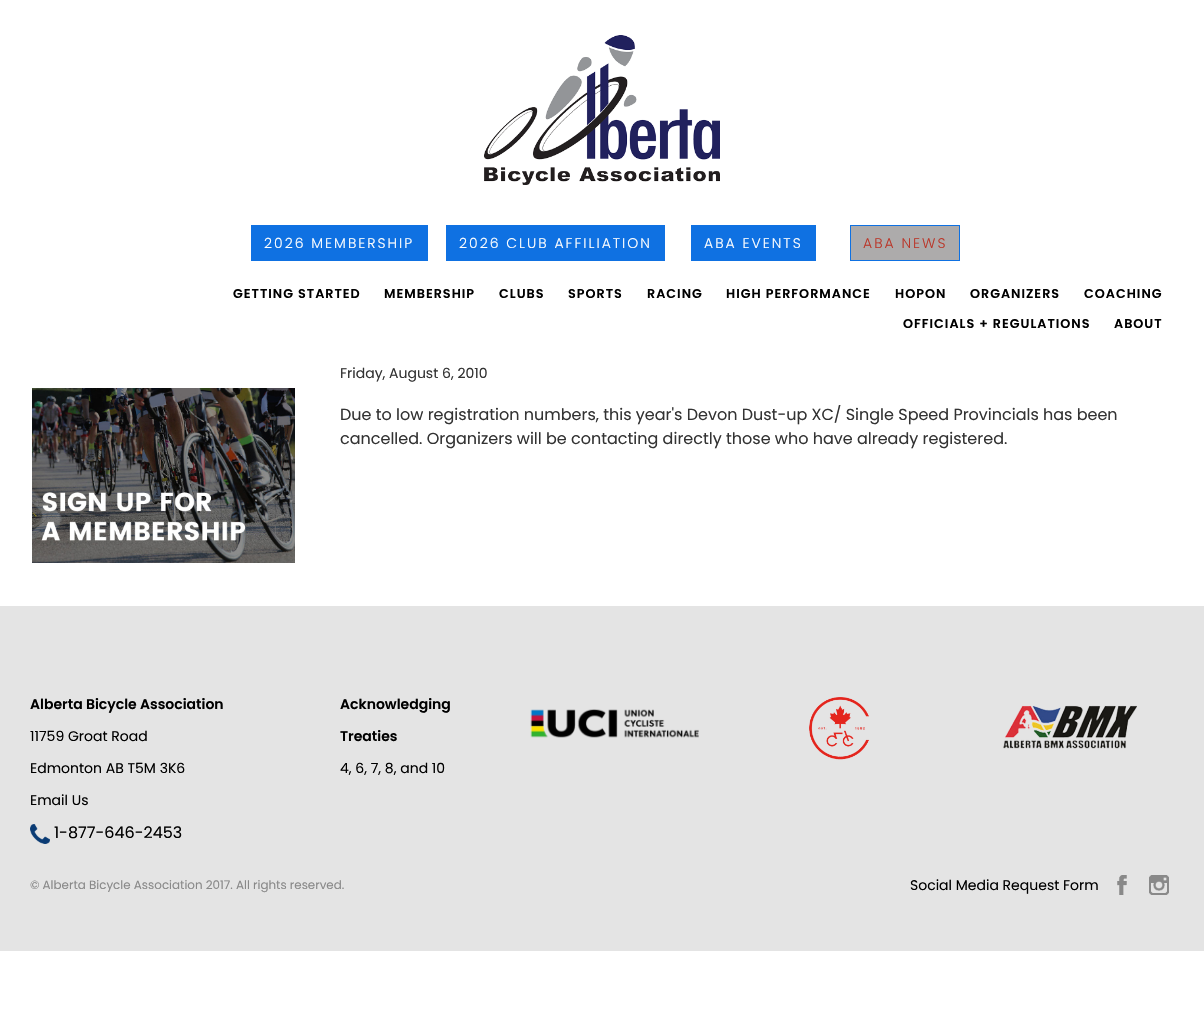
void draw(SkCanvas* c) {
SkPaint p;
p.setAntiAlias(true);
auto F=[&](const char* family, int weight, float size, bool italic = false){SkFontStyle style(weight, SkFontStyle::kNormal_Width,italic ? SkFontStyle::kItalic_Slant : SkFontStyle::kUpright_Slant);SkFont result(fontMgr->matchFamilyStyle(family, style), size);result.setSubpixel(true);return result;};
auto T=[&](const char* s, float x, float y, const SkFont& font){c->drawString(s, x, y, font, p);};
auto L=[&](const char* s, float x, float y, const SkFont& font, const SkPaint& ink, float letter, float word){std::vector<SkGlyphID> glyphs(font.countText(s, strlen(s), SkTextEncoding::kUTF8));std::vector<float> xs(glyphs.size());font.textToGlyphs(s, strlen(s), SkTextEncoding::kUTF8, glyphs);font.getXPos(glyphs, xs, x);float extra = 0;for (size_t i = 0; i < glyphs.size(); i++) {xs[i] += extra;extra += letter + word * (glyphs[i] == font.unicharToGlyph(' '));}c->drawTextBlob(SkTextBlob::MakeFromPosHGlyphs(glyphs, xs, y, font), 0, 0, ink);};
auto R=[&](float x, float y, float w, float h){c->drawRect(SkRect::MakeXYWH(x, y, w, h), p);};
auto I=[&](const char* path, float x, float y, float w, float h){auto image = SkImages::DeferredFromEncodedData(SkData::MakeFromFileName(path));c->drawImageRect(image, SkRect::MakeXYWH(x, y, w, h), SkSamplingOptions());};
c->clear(0xffffffff);
I("1.png",484,35,236,150);
p.setColor(0xff0f71e2);
R(251,225,177,36);
auto f1 = F("Poppins",300,14);
p.setColor(0xffffffff);
L("2026 MEMBERSHIP",264,248,f1,p,2,0);
p.setColor(0xff0f71e2);
R(446,225,219,36);
p.setColor(0xffffffff);
L("2026 CLUB AFFILIATION",459,248,f1,p,2,0);
p.setColor(0xff0f71e2);
R(691,225,125,36);
p.setColor(0xffffffff);
L("ABA EVENTS",704,248,f1,p,2,0);
p.setColor(0xffadabab);
c->drawRect(SkRect::MakeXYWH(850.5,225.5,109,35),p);
p.setStroke(true);
p.setStrokeWidth(1);
p.setColor(0xff0f71e2);
c->drawRect(SkRect::MakeXYWH(850.5,225.5,109,35),p);
p.setStroke(false);
p.setColor(0xffba372a);
L("ABA NEWS",863,248,f1,p,2,0);
auto f2 = F("Poppins",600,12.75);
p.setColor(0xff000000);
L("GETTING STARTED",233,298,f2,p,1,0);
L("MEMBERSHIP",384,298,f2,p,1,0);
L("CLUBS",499,298,f2,p,1,0);
L("SPORTS",568,298,f2,p,1,0);
L("RACING",647,298,f2,p,1,0);
L("HIGH PERFORMANCE",726,298,f2,p,1,0);
L("HOPON",895,298,f2,p,1,0);
L("ORGANIZERS",970,298,f2,p,1,0);
L("COACHING",1084,298,f2,p,1,0);
L("OFFICIALS + REGULATIONS",903,328,f2,p,1,0);
L("ABOUT",1114,328,f2,p,1,0);
I("2.png",32,388,263,175);
auto f3 = F("Poppins",400,14);
p.setColor(0xff333333);
T("Friday, August 6, 2010",340,378,f3);
auto f4 = F("Poppins",400,16);
T("Due to low registration numbers, this year's Devon Dust-up XC/ Single Speed Provincials has been",340,420,f4);
T("cancelled. Organizers will be contacting directly those who have already registered.",340,444,f4);
p.setColor(0xffe4e4e4);
R(0,606,1204,345);
auto f5 = F("Poppins",600,14);
p.setColor(0xff000000);
T("Alberta Bicycle Association",30,709,f5);
T("11759 Groat Road",30,741,f3);
T("Edmonton AB T5M 3K6",30,773,f3);
T("Email Us",30,805,f3);
I("3.png",30,824,20,20);
T("1-877-646-2453",54,838,f4);
T("Acknowledging",340,709,f5);
T("Treaties",340,741,f5);
T("4, 6, 7, 8, and 10",340,773,f3);
I("4.png",530,709,169,29);
I("5.png",809,697,60,63);
I("6.png",1003,705,134,44);
auto f6 = F("Poppins",400,11.9);
p.setColor(0xff898989);
T("© Alberta Bicycle Association 2017. All rights reserved.",30,889,f6);
p.setColor(0xff000000);
T("Social Media Request Form",910,890,f3);
I("7.png",1117,875,10,20);
I("8.png",1149,875,20,20);
}
